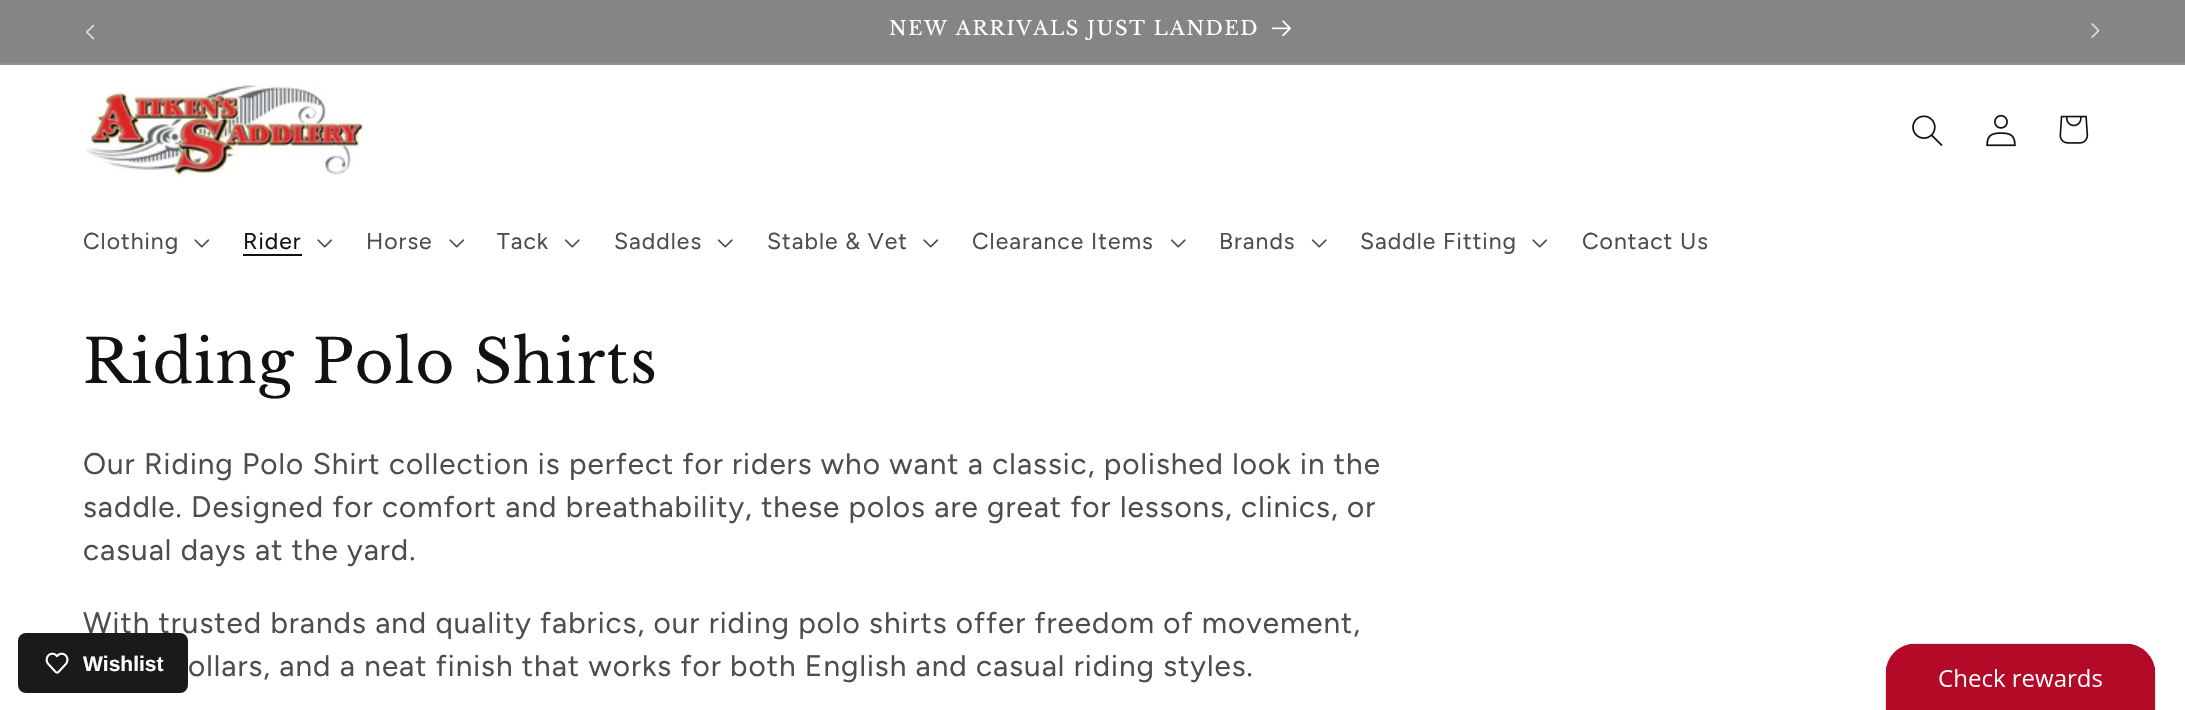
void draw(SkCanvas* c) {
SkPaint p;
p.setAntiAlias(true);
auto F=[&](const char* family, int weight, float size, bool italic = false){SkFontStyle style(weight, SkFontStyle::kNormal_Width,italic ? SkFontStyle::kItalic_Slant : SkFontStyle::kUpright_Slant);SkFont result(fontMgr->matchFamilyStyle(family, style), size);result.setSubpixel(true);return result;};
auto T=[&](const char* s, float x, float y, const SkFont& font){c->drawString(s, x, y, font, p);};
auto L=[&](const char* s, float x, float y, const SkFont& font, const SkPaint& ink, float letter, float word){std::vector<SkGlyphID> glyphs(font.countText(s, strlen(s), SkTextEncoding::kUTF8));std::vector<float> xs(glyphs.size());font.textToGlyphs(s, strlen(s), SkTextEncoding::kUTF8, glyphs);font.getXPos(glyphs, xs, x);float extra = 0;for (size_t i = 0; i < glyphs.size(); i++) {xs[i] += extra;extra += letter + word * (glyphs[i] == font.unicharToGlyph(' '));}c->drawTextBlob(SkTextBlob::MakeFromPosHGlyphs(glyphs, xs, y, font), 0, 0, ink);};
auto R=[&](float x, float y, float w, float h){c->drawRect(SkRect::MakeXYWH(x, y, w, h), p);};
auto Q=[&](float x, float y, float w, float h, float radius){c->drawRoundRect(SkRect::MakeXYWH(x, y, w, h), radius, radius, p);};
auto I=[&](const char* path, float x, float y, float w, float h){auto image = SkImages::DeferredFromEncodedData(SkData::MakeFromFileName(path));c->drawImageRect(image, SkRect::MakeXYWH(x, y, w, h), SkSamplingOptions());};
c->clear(0xffffffff);
p.setColor(0xff868584);
R(0,0,2185,63);
p.setColor(0xff908f8e);
R(0,63,2185,2);
I("1.png",86,24,9,16);
auto f1 = F("Libre Baskerville",400,19.5);
p.setColor(0xffffffff);
L("NEW ARRIVALS JUST LANDED",889,35,f1,p,1.65,0);
I("2.png",1272,20,19,16);
I("3.png",2091,23,9,15);
I("4.png",85,82,279,95);
I("5.png",1912,115,31,31);
I("6.png",1986,114,30,33);
I("7.png",2059,115,30,29);
auto f2 = F("Figtree",400,23);
p.setColor(0xff4d4d4d);
L("Clothing",83,249,f2,p,1,0);
I("8.png",194,239,16,9);
p.setColor(0xff121212);
L("Rider",243,249,f2,p,1,0);
R(243,254,59,2);
I("8.png",317,239,16,9);
p.setColor(0xff4d4d4d);
L("Horse",366,249,f2,p,1,0);
I("8.png",449,239,16,9);
L("Tack",497,249,f2,p,1,0);
I("9.png",564,239,16,9);
L("Saddles",614,249,f2,p,1,0);
I("9.png",717,239,16,9);
L("Stable & Vet",767,249,f2,p,1,0);
I("8.png",923,239,16,9);
L("Clearance Items",972,249,f2,p,1,0);
I("9.png",1170,239,16,9);
L("Brands",1219,249,f2,p,1,0);
I("9.png",1311,239,16,9);
L("Saddle Fitting",1360,249,f2,p,1,0);
I("8.png",1532,239,16,9);
L("Contact Us",1582,249,f2,p,1,0);
auto f3 = F("Libre Baskerville",400,60);
p.setColor(0xff121212);
L("Riding Polo Shirts",83,383,f3,p,.9,0);
auto f4 = F("Figtree",400,29.7);
p.setColor(0xff4d4d4d);
L("Our Riding Polo Shirt collection is perfect for riders who want a classic, polished look in the",83,474,f4,p,1,0);
L("saddle. Designed for comfort and breathability, these polos are great for lessons, clinics, or",83,517,f4,p,1,0);
L("casual days at the yard.",83,560,f4,p,1,0);
L("With trusted brands and quality fabrics, our riding polo shirts offer freedom of movement,",83,633,f4,p,1,0);
L("ollars, and a neat finish that works for both English and casual riding styles.",188,676,f4,p,1,0);
I("10.png",1885,643,271,67);
p.setColor(0xff1a1a1a);
Q(18,633,170,60,8);
I("11.png",45,652,24,22);
auto f5 = F("Liberation Sans",700,21);
p.setColor(0xffffffff);
T("Wishlist",83,671,f5);
}
